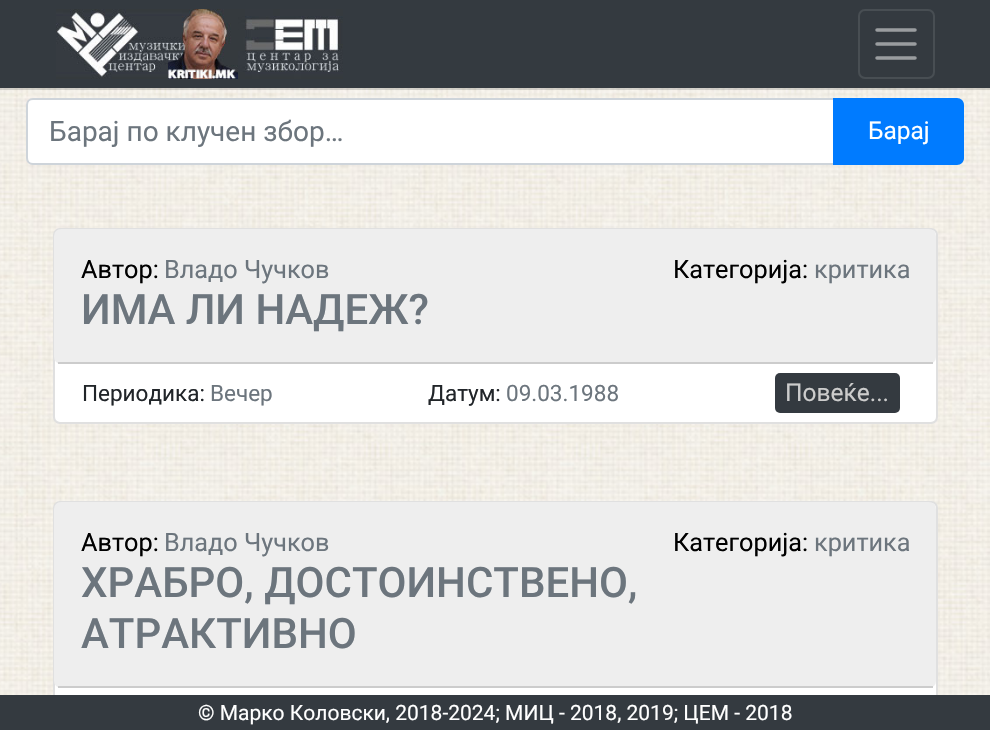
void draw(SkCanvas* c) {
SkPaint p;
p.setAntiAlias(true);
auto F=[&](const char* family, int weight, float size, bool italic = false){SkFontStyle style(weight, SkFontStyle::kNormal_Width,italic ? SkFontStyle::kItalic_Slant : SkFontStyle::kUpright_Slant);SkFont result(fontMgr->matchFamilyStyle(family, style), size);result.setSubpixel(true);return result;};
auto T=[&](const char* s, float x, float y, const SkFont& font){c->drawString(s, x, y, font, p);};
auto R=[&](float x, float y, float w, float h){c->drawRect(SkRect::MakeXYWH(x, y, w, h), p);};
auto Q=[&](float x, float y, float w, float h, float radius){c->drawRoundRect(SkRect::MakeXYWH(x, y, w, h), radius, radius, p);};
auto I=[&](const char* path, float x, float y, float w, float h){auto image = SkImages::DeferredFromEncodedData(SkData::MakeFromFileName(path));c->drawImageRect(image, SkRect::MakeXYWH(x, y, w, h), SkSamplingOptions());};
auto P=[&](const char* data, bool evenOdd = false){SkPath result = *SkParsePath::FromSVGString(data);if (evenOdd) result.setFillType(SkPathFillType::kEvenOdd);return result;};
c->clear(0xffffffff);
I("1.png",0,88,990,607);
p.setColor(0x1f000000);
R(0,88,990,2);
p.setColor(0xff343a40);
R(0,0,990,88);
I("2.png",56,9,287,70);
p.setStroke(true);
p.setStrokeWidth(2);
p.setColor(0xff484e53);
c->drawRoundRect(SkRect::MakeXYWH(859,10,75,68),6,6,p);
p.setStrokeWidth(3.5);
p.setStrokeCap(SkPaint::kRound_Cap);
p.setColor(0xff9a9da0);
c->drawPath(P("M877 30h38m-38 14h38m-38 14h38"),p);
p.setStroke(false);
p.setColor(0xffffffff);
c->drawPath(P("M33 99h801v65h-801c-3.5 0-6-2.5-6-6v-53c0-3.5 2.5-6 6-6z"),p);
p.setStroke(true);
p.setStrokeWidth(2);
p.setStrokeCap(SkPaint::kButt_Cap);
p.setColor(0xffced4da);
c->drawPath(P("M33 99h801v65h-801c-3.5 0-6-2.5-6-6v-53c0-3.5 2.5-6 6-6z"),p);
auto f1 = F("Roboto",400,28);
p.setStroke(false);
p.setColor(0xff6c757d);
T("Барај по клучен збор…",49,141,f1);
p.setColor(0xff007bff);
c->drawPath(P("M833 98h124c4 0 7 3 7 7v53c0 4-3 7-7 7h-124z"),p);
auto f2 = F("Roboto",400,24.5);
p.setColor(0xffffffff);
T("Барај",868,139,f2);
Q(53,228,885,196,7);
p.setStroke(true);
p.setColor(0x1f000000);
c->drawRoundRect(SkRect::MakeXYWH(54,229,883,194),6,6,p);
p.setStroke(false);
p.setColor(0xffeeeeee);
Q(54,229,882,135,7);
p.setColor(0xffcccccc);
R(58,362,875,2);
auto f3 = F("Roboto",400,25.25);
p.setColor(0xff000000);
T("Автор:",81,278,f3);
p.setColor(0xff6c757d);
T("Владо Чучков",164,278,f3);
p.setColor(0xff000000);
T("Категорија:",673,278,f3);
p.setColor(0xff6c757d);
T("критика",814,278,f3);
auto f4 = F("Roboto",500,42);
T("ИМА ЛИ НАДЕЖ?",81,324,f4);
auto f5 = F("Roboto",400,22.5);
p.setColor(0xff212529);
T("Периодика:",82,401,f5);
p.setColor(0xff6c757d);
T("Вечер",210,401,f5);
p.setColor(0xff212529);
T("Датум:",428,401,f5);
p.setColor(0xff6c757d);
T("09.03.1988",506,401,f5);
p.setColor(0xff343a40);
Q(775,373,125,40,5);
p.setColor(0xffcccccc);
T("Повеќе...",785,401,f2);
p.setColor(0xffffffff);
Q(53,501,885,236,7);
p.setStroke(true);
p.setColor(0x1f000000);
c->drawRoundRect(SkRect::MakeXYWH(54,502,883,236),6,6,p);
p.setStroke(false);
p.setColor(0xffeeeeee);
Q(54,502,882,186,7);
p.setColor(0xffcccccc);
R(58,686,875,2);
p.setColor(0xff000000);
T("Автор:",81,551,f3);
p.setColor(0xff6c757d);
T("Владо Чучков",164,551,f3);
p.setColor(0xff000000);
T("Категорија:",673,551,f3);
p.setColor(0xff6c757d);
T("критика",814,551,f3);
T("ХРАБРО, ДОСТОИНСТВЕНО,",81,597,f4);
T("АТРАКТИВНО",81,648,f4);
p.setColor(0xff343a40);
R(0,695,990,35);
auto f6 = F("Roboto",400,21);
p.setColor(0xffffffff);
T("© Марко Коловски, 2018-2024; МИЦ - 2018, 2019; ЦЕМ - 2018",198,720,f6);
}
